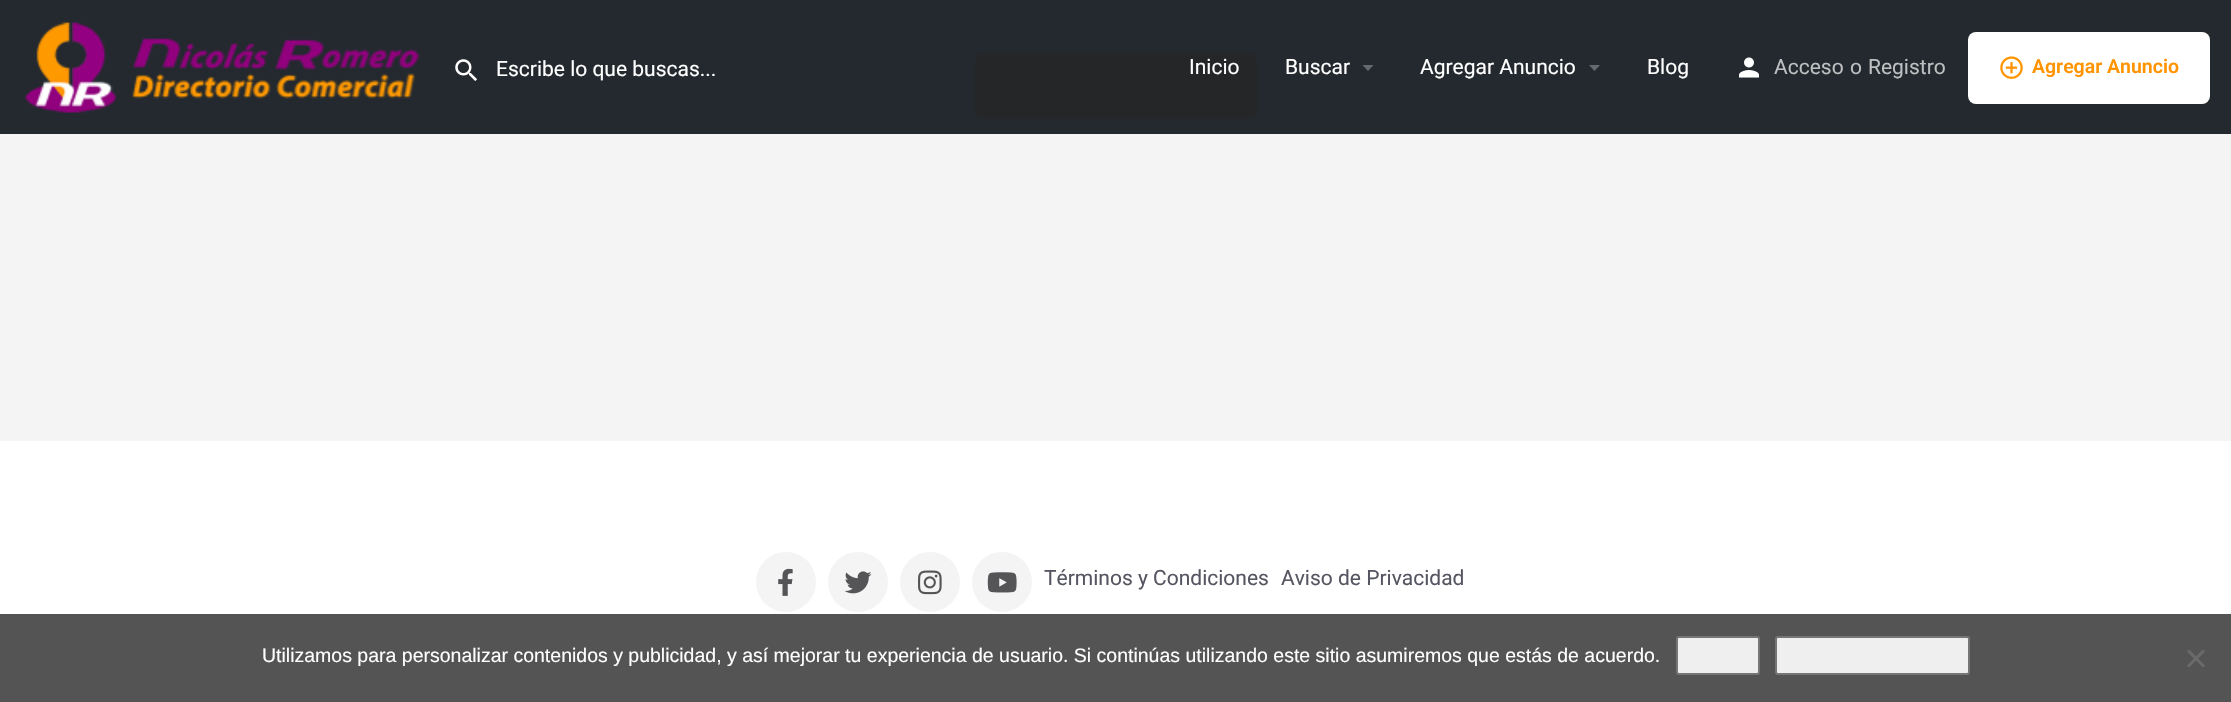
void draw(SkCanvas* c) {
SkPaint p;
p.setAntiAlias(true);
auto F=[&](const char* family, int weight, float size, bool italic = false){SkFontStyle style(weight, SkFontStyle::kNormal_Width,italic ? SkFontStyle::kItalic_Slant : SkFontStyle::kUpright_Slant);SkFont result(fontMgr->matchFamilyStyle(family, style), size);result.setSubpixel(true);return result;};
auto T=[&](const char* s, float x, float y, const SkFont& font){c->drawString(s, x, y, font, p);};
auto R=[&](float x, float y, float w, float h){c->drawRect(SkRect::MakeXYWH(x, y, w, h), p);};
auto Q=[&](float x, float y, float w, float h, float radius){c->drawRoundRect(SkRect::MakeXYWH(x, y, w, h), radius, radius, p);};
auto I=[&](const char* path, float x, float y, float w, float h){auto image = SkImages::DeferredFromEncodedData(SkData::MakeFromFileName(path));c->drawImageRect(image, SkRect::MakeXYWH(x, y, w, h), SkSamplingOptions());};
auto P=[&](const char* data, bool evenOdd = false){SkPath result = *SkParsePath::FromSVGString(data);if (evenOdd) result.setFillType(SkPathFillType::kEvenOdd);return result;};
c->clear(0xfff4f4f4);
p.setColor(0xff23292f);
R(0,0,2231,134);
p.setColor(0xff242628);
Q(975,53,282,66,8);
I("1.png",25,21,395,92);
I("2.png",455,59,22,22);
auto f1 = F("Roboto",400,21);
p.setColor(0xffffffff);
T("Escribe lo que buscas...",496,76,f1);
T("Inicio",1189,74,f1);
T("Buscar",1285,74,f1);
p.setColor(0xff65696d);
c->drawPath(P("M1362.5 65h11l-5.5 6z"),p);
p.setColor(0xffffffff);
T("Agregar Anuncio",1420,74,f1);
p.setColor(0xff65696d);
c->drawPath(P("M1589 65h11l-5.5 6z"),p);
p.setColor(0xffffffff);
T("Blog",1647,74,f1);
I("3.png",1739,57,20,21);
p.setColor(0xffbdbfc1);
T("Acceso",1774,74,f1);
T("o",1850,74,f1);
T("Registro",1868,74,f1);
p.setColor(0xffffffff);
Q(1968,32,242,72,8);
I("4.png",2000,56,23,23);
auto f2 = F("Roboto",600,19.5);
p.setColor(0xffff9400);
T("Agregar Anuncio",2032,73,f2);
p.setColor(0xffffffff);
R(0,441,2231,173);
p.setColor(0xfff4f4f4);
c->drawCircle(786,582,30,p);
I("5.png",778,568,15,28);
c->drawCircle(858,582,30,p);
I("6.png",844,571,28,23);
c->drawCircle(930,582,30,p);
I("7.png",918,570,24,25);
c->drawCircle(1002,582,30,p);
I("8.png",987,572,30,21);
p.setColor(0xff565662);
T("Términos y Condiciones",1044,585,f1);
T("Aviso de Privacidad",1281,585,f1);
p.setColor(0xff545454);
R(0,614,2231,88);
auto f3 = F("Liberation Sans",400,19.5);
p.setColor(0xffffffff);
T("Utilizamos para personalizar contenidos y publicidad, y así mejorar tu experiencia de usuario. Si continúas utilizando este sitio asumiremos que estás de acuerdo.",262,662,f3);
p.setColor(0xffefefef);
c->drawRoundRect(SkRect::MakeXYWH(1677,637,82,37),2,2,p);
p.setStroke(true);
p.setStrokeWidth(2);
p.setColor(0xff767676);
c->drawRoundRect(SkRect::MakeXYWH(1677,637,82,37),2,2,p);
p.setStroke(false);
p.setColor(0xffefefef);
c->drawRoundRect(SkRect::MakeXYWH(1776,637,193,37),2,2,p);
p.setStroke(true);
p.setColor(0xff767676);
c->drawRoundRect(SkRect::MakeXYWH(1776,637,193,37),2,2,p);
p.setStroke(false);
p.setColor(0xff6a6a6a);
c->drawPath(P("M2203 649.5l2 2l-16 16l-2-2z"),p);
c->drawPath(P("M2187 651.5l2-2l16 16l-2 2z"),p);
}
